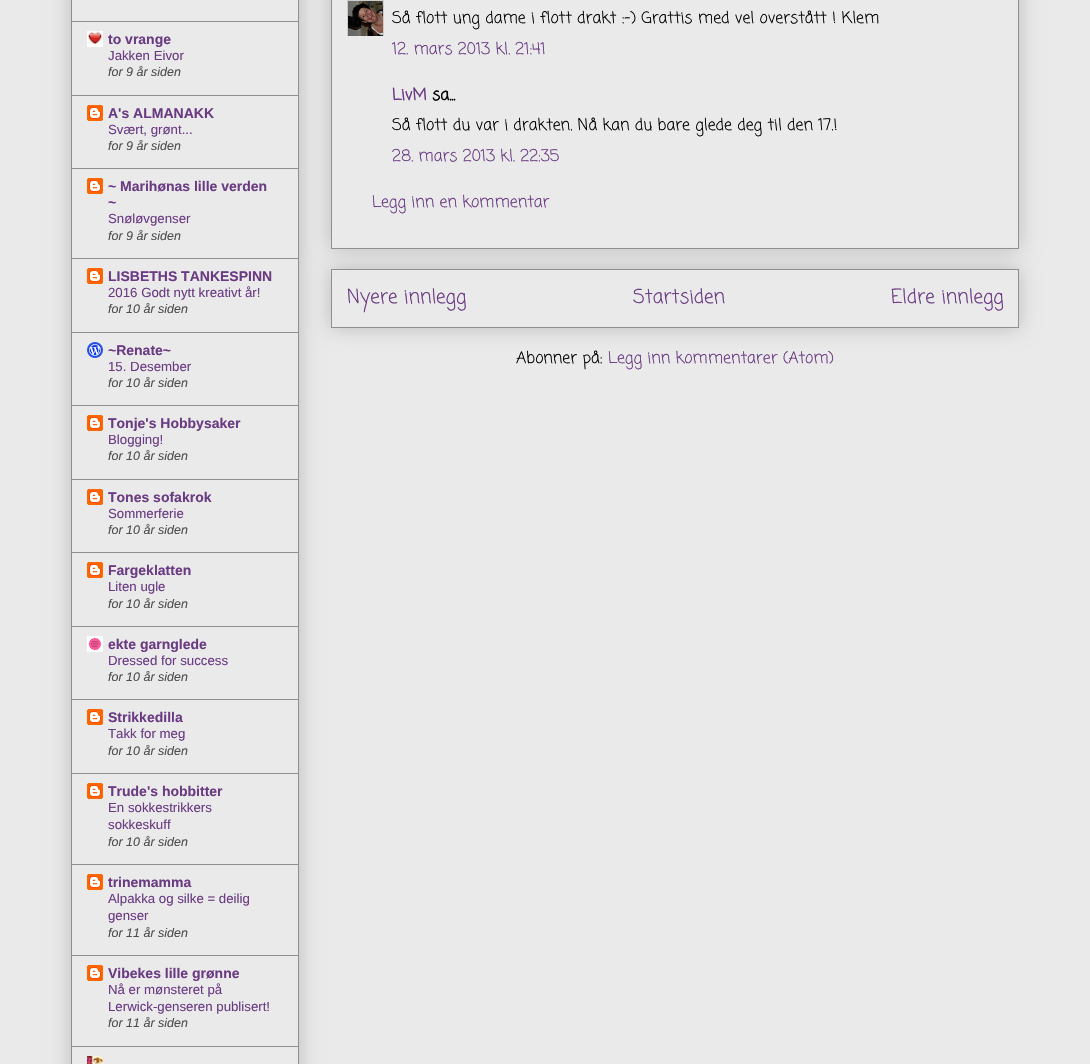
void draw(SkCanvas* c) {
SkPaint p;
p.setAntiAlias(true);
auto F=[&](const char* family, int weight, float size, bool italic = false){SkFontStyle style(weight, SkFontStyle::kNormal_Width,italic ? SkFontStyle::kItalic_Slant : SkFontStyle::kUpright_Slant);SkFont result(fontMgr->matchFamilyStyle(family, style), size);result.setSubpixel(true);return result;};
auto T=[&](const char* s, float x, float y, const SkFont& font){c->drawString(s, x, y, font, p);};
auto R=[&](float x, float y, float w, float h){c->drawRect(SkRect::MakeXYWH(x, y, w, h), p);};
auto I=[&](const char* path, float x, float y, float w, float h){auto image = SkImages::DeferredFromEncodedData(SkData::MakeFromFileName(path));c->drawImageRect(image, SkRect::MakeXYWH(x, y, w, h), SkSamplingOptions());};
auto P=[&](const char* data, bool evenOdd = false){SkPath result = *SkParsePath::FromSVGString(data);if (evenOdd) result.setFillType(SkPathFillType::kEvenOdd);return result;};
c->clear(0xffeaeaea);
c->save();
c->clipPath(P("M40 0h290v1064h-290zm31-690h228v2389h-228z",true),true);
p.setColor(0x33000000);
p.setMaskFilter(SkMaskFilter::MakeBlur(kNormal_SkBlurStyle, 10));
c->drawRect(SkRect::MakeXYWH(71,-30,228,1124),p);
p.setMaskFilter(nullptr);
c->restore();
p.setStroke(true);
p.setStrokeWidth(1);
p.setColor(0xff909090);
c->drawRect(SkRect::MakeXYWH(71.5,-.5,227,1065),p);
p.setStroke(false);
R(72,21,226,1);
I("1.png",87,31,16,16);
auto f1 = F("Liberation Sans",700,14);
p.setColor(0xff6a3b83);
T("to vrange",108,44,f1);
auto f2 = F("Liberation Sans",400,13.25);
T("Jakken Eivor",108,60,f2);
auto f3 = F("Liberation Sans",400,12.5,true);
p.setColor(0xff4e4e4e);
T("for 9 år siden",108,76,f3);
p.setColor(0xff909090);
R(72,95,226,1);
I("2.png",87,105,16,16);
p.setColor(0xff6a3b83);
T("A's ALMANAKK",108,118,f1);
T("Svært, grønt...",108,134,f2);
p.setColor(0xff4e4e4e);
T("for 9 år siden",108,150,f3);
p.setColor(0xff909090);
R(72,168,226,1);
I("2.png",87,178,16,16);
p.setColor(0xff6a3b83);
T("~ Marihønas lille verden",108,191,f1);
T("~",108,207,f1);
T("Snøløvgenser",108,223,f2);
p.setColor(0xff4e4e4e);
T("for 9 år siden",108,240,f3);
p.setColor(0xff909090);
R(72,258,226,1);
I("2.png",87,268,16,16);
p.setColor(0xff6a3b83);
T("LISBETHS TANKESPINN",108,281,f1);
T("2016 Godt nytt kreativt år!",108,297,f2);
p.setColor(0xff4e4e4e);
T("for 10 år siden",108,313,f3);
p.setColor(0xff909090);
R(72,332,226,1);
I("3.png",87,342,16,16);
p.setColor(0xff6a3b83);
T("~Renate~",108,355,f1);
T("15. Desember",108,371,f2);
p.setColor(0xff4e4e4e);
T("for 10 år siden",108,387,f3);
p.setColor(0xff909090);
R(72,405,226,1);
I("2.png",87,415,16,16);
p.setColor(0xff6a3b83);
T("Tonje's Hobbysaker",108,428,f1);
T("Blogging!",108,444,f2);
p.setColor(0xff4e4e4e);
T("for 10 år siden",108,460,f3);
p.setColor(0xff909090);
R(72,479,226,1);
I("2.png",87,489,16,16);
p.setColor(0xff6a3b83);
T("Tones sofakrok",108,502,f1);
T("Sommerferie",108,518,f2);
p.setColor(0xff4e4e4e);
T("for 10 år siden",108,534,f3);
p.setColor(0xff909090);
R(72,552,226,1);
I("2.png",87,562,16,16);
p.setColor(0xff6a3b83);
T("Fargeklatten",108,575,f1);
T("Liten ugle",108,591,f2);
p.setColor(0xff4e4e4e);
T("for 10 år siden",108,608,f3);
p.setColor(0xff909090);
R(72,626,226,1);
I("4.png",87,636,16,16);
p.setColor(0xff6a3b83);
T("ekte garnglede",108,649,f1);
T("Dressed for success",108,665,f2);
p.setColor(0xff4e4e4e);
T("for 10 år siden",108,681,f3);
p.setColor(0xff909090);
R(72,699,226,1);
I("2.png",87,709,16,16);
p.setColor(0xff6a3b83);
T("Strikkedilla",108,722,f1);
T("Takk for meg",108,738,f2);
p.setColor(0xff4e4e4e);
T("for 10 år siden",108,755,f3);
p.setColor(0xff909090);
R(72,773,226,1);
I("2.png",87,783,16,16);
p.setColor(0xff6a3b83);
T("Trude's hobbitter",108,796,f1);
T("En sokkestrikkers",108,812,f2);
T("sokkeskuff",108,829,f2);
p.setColor(0xff4e4e4e);
T("for 10 år siden",108,846,f3);
p.setColor(0xff909090);
R(72,864,226,1);
I("2.png",87,874,16,16);
p.setColor(0xff6a3b83);
T("trinemamma",108,887,f1);
T("Alpakka og silke = deilig",108,903,f2);
T("genser",108,920,f2);
p.setColor(0xff4e4e4e);
T("for 11 år siden",108,937,f3);
p.setColor(0xff909090);
R(72,955,226,1);
I("2.png",87,965,16,16);
p.setColor(0xff6a3b83);
T("Vibekes lille grønne",108,978,f1);
T("Nå er mønsteret på",108,994,f2);
T("Lerwick-genseren publisert!",108,1011,f2);
p.setColor(0xff4e4e4e);
T("for 11 år siden",108,1027,f3);
p.setColor(0xff909090);
R(72,1046,226,1);
I("5.png",87,1056,16,8);
c->save();
c->clipPath(P("M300 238h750v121h-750zm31 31h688v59h-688z",true),true);
p.setColor(0x33000000);
p.setMaskFilter(SkMaskFilter::MakeBlur(kNormal_SkBlurStyle, 10));
c->drawRect(SkRect::MakeXYWH(331,269,688,59),p);
p.setMaskFilter(nullptr);
c->restore();
p.setStroke(true);
p.setColor(0xff909090);
c->drawRect(SkRect::MakeXYWH(331.5,269.5,687,58),p);
c->save();
c->clipPath(P("M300 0h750v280h-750zm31-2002h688v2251h-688z",true),true);
p.setStroke(false);
p.setColor(0x33000000);
p.setMaskFilter(SkMaskFilter::MakeBlur(kNormal_SkBlurStyle, 10));
c->drawRect(SkRect::MakeXYWH(331,-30,688,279),p);
p.setMaskFilter(nullptr);
c->restore();
p.setStroke(true);
p.setColor(0xff909090);
c->drawRect(SkRect::MakeXYWH(331.5,-.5,687,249),p);
c->save();
c->clipRect(SkRect::MakeXYWH(347,0,37,36));
p.setColor(0xffcccccc);
c->drawRect(SkRect::MakeXYWH(347.5,.5,36,36),p);
c->restore();
I("6.png",348,1,35,35);
auto f4 = F("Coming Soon",400,16);
p.setStroke(false);
p.setColor(0xff000000);
T("Så flott ung dame i flott drakt :-) Grattis med vel overstått ! Klem",392,23,f4);
p.setColor(0xff6a3b83);
T("12. mars 2013 kl. 21:41",392,54,f4);
auto f5 = F("Coming Soon",700,16);
T("LivM",392,100,f5);
p.setColor(0xff000000);
T("sa...",432,100,f5);
T("Så flott du var i drakten. Nå kan du bare glede deg til den 17.!",392,130,f4);
p.setColor(0xff6a3b83);
T("28. mars 2013 kl. 22:35",392,161,f4);
T("Legg inn en kommentar",372,207,f4);
auto f6 = F("Coming Soon",400,19.25);
T("Nyere innlegg",347,303,f6);
T("Startsiden",633,303,f6);
T("Eldre innlegg",891,303,f6);
p.setColor(0xff000000);
T("Abonner på:",516,363,f4);
p.setColor(0xff6a3b83);
T("Legg inn kommentarer (Atom)",608,363,f4);
}
